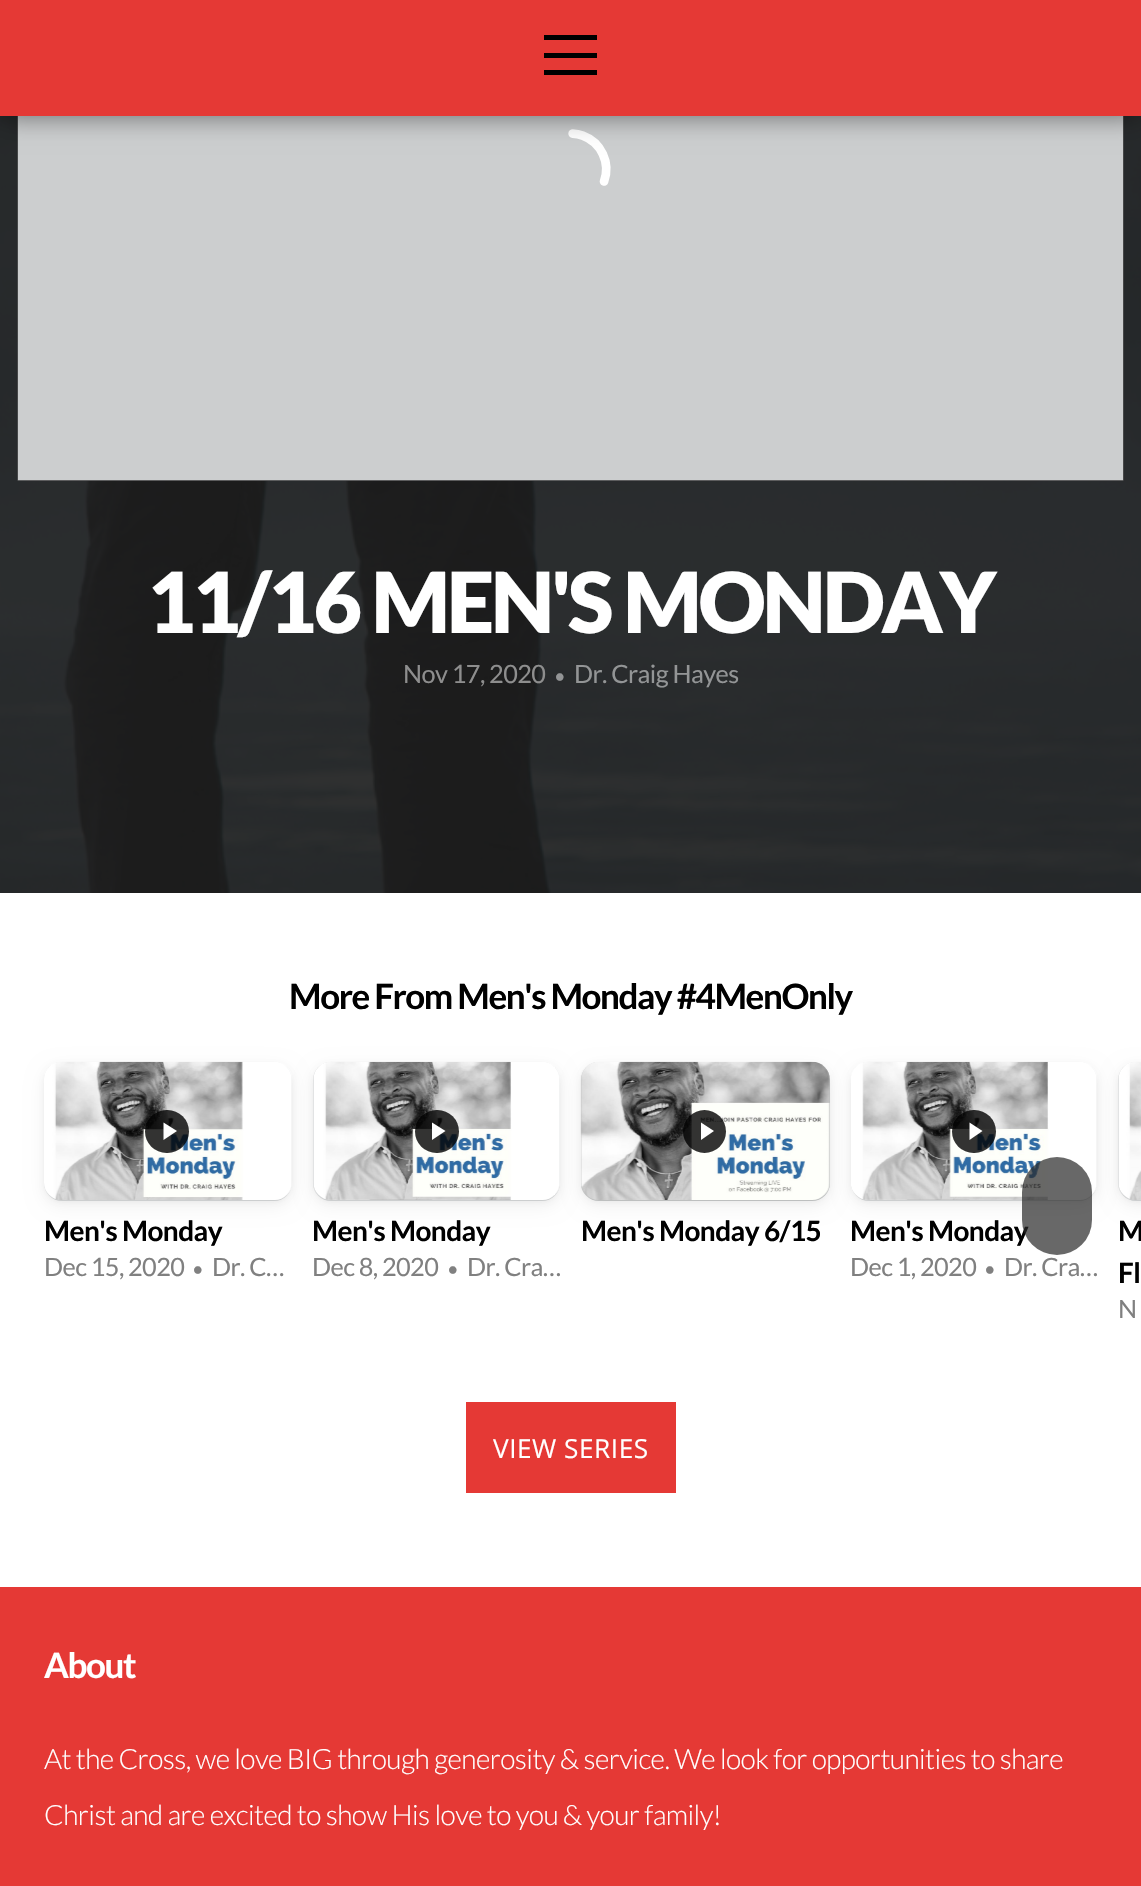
void draw(SkCanvas* c) {
SkPaint p;
p.setAntiAlias(true);
auto F=[&](const char* family, int weight, float size, bool italic = false){SkFontStyle style(weight, SkFontStyle::kNormal_Width,italic ? SkFontStyle::kItalic_Slant : SkFontStyle::kUpright_Slant);SkFont result(fontMgr->matchFamilyStyle(family, style), size);result.setSubpixel(true);return result;};
auto L=[&](const char* s, float x, float y, const SkFont& font, const SkPaint& ink, float letter, float word){std::vector<SkGlyphID> glyphs(font.countText(s, strlen(s), SkTextEncoding::kUTF8));std::vector<float> xs(glyphs.size());font.textToGlyphs(s, strlen(s), SkTextEncoding::kUTF8, glyphs);font.getXPos(glyphs, xs, x);float extra = 0;for (size_t i = 0; i < glyphs.size(); i++) {xs[i] += extra;extra += letter + word * (glyphs[i] == font.unicharToGlyph(' '));}c->drawTextBlob(SkTextBlob::MakeFromPosHGlyphs(glyphs, xs, y, font), 0, 0, ink);};
auto R=[&](float x, float y, float w, float h){c->drawRect(SkRect::MakeXYWH(x, y, w, h), p);};
auto Q=[&](float x, float y, float w, float h, float radius){c->drawRoundRect(SkRect::MakeXYWH(x, y, w, h), radius, radius, p);};
auto I=[&](const char* path, float x, float y, float w, float h){auto image = SkImages::DeferredFromEncodedData(SkData::MakeFromFileName(path));c->drawImageRect(image, SkRect::MakeXYWH(x, y, w, h), SkSamplingOptions());};
auto P=[&](const char* data, bool evenOdd = false){SkPath result = *SkParsePath::FromSVGString(data);if (evenOdd) result.setFillType(SkPathFillType::kEvenOdd);return result;};
c->clear(0xffffffff);
I("1.png",0,116,1141,777);
I("2.png",17,116,1107,365);
p.setColor(0x80000000);
p.setMaskFilter(SkMaskFilter::MakeBlur(kNormal_SkBlurStyle, 13));
c->drawRect(SkRect::MakeXYWH(0,0,1141,116),p);
p.setMaskFilter(nullptr);
p.setColor(0xffe53935);
R(0,0,1141,116);
p.setColor(0xff000000);
R(544,35,53,5);
R(544,53,53,5);
R(544,70,53,5);
auto f1 = F("Lato",900,84);
p.setColor(0xffffffff);
L("11/16 MEN'S MONDAY",147,633,f1,p,-3.4,0);
auto f2 = F("Lato",400,25.25);
p.setColor(0xff8e8e8e);
L("Nov 17, 2020",403,683,f2,p,-.55,0);
auto f3 = F("Lato",400,20);
p.setColor(0xff939596);
L("•",554,683,f3,p,-.55,0);
L("Dr. Craig Hayes",574,683,f2,p,-.55,0);
auto f4 = F("Lato",700,35);
p.setColor(0xff000000);
L("More From Men's Monday #4MenOnly",289,1009,f4,p,-1.4,0);
p.setColor(0x0a000000);
p.setMaskFilter(SkMaskFilter::MakeBlur(kNormal_SkBlurStyle, 2));
c->drawRoundRect(SkRect::MakeXYWH(851,1064,246,138),18,18,p);
p.setMaskFilter(nullptr);
p.setMaskFilter(SkMaskFilter::MakeBlur(kNormal_SkBlurStyle, 2));
c->drawRoundRect(SkRect::MakeXYWH(44,1064,248,138),18,18,p);
p.setMaskFilter(nullptr);
p.setColor(0x0f000000);
p.setMaskFilter(SkMaskFilter::MakeBlur(kNormal_SkBlurStyle, 9));
c->drawRoundRect(SkRect::MakeXYWH(44,1068,248,138),18,18,p);
p.setMaskFilter(nullptr);
p.setColor(0xffcccecf);
Q(44,1062,248,139,18);
I("3.png",44,1061,248,139);
p.setColor(0x0f000000);
p.setMaskFilter(SkMaskFilter::MakeBlur(kNormal_SkBlurStyle, 9));
c->drawRoundRect(SkRect::MakeXYWH(313,1068,247,138),18,18,p);
p.setMaskFilter(nullptr);
p.setColor(0x0a000000);
p.setMaskFilter(SkMaskFilter::MakeBlur(kNormal_SkBlurStyle, 2));
c->drawRoundRect(SkRect::MakeXYWH(581,1064,249,138),18,18,p);
p.setMaskFilter(nullptr);
p.setMaskFilter(SkMaskFilter::MakeBlur(kNormal_SkBlurStyle, 2));
c->drawRoundRect(SkRect::MakeXYWH(313,1064,247,138),18,18,p);
p.setMaskFilter(nullptr);
p.setColor(0xffcccecf);
Q(313,1062,247,139,18);
I("4.png",313,1061,247,139);
p.setColor(0x0f000000);
p.setMaskFilter(SkMaskFilter::MakeBlur(kNormal_SkBlurStyle, 9));
c->drawRoundRect(SkRect::MakeXYWH(581,1068,249,138),18,18,p);
p.setMaskFilter(nullptr);
p.setColor(0xffbdbfbf);
Q(581,1062,249,139,18);
I("5.png",580,1061,250,139);
p.setColor(0x0f000000);
p.setMaskFilter(SkMaskFilter::MakeBlur(kNormal_SkBlurStyle, 9));
c->drawRoundRect(SkRect::MakeXYWH(851,1068,246,138),18,18,p);
p.setMaskFilter(nullptr);
p.setColor(0xffcccecf);
Q(851,1062,246,139,18);
I("6.png",851,1061,246,139);
auto f5 = F("Lato",700,28);
p.setColor(0xff000000);
L("Men's Monday",850,1241,f5,p,-.55,0);
p.setColor(0x0f000000);
p.setMaskFilter(SkMaskFilter::MakeBlur(kNormal_SkBlurStyle, 9));
c->drawRoundRect(SkRect::MakeXYWH(1118,1068,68,138),18,18,p);
p.setMaskFilter(nullptr);
p.setColor(0xb3282828);
Q(1022,1157,70,98,35);
p.setColor(0xcc000000);
Q(145,1110,44,43,21.5);
p.setColor(0xffffffff);
c->drawPath(P("M163.5 1140v-17.5l13.5 8.5z"),p);
p.setColor(0xff000000);
L("Men's Monday",44,1241,f5,p,-.55,0);
p.setColor(0xff808080);
L("Dec 15, 2020",44,1276,f2,p,-.55,0);
L("•",192,1276,f3,p,-.55,0);
L("Dr. C…",212,1276,f2,p,-.55,0);
p.setColor(0xcc000000);
Q(415,1110,44,43,21.5);
p.setColor(0xffffffff);
c->drawPath(P("M432 1140v-17.5l13.5 8.5z"),p);
p.setColor(0xff000000);
L("Men's Monday",312,1241,f5,p,-.55,0);
p.setColor(0xff808080);
L("Dec 8, 2020",312,1276,f2,p,-.55,0);
L("•",447,1276,f3,p,-.55,0);
L("Dr. Cra…",467,1276,f2,p,-.55,0);
p.setColor(0xcc000000);
c->drawCircle(704.5,1131.5,21.5,p);
p.setColor(0xffffffff);
c->drawPath(P("M701 1140v-17.5l13 8.5z"),p);
p.setColor(0xff000000);
L("Men's Monday 6/15",581,1241,f5,p,-.55,0);
p.setColor(0xcc000000);
Q(952,1110,44,43,21.5);
p.setColor(0xffffffff);
c->drawPath(P("M969.5 1140v-17.5l13 8.5z"),p);
p.setColor(0xff808080);
L("Dec 1, 2020",850,1276,f2,p,-.55,0);
L("•",984,1276,f3,p,-.55,0);
L("Dr. Cra…",1004,1276,f2,p,-.55,0);
p.setColor(0x0a000000);
p.setMaskFilter(SkMaskFilter::MakeBlur(kNormal_SkBlurStyle, 2));
c->drawRoundRect(SkRect::MakeXYWH(1118,1064,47,138),18,18,p);
p.setMaskFilter(nullptr);
p.setColor(0xffcccecf);
c->drawPath(P("M1136 1062h5v139h-5c-10 0-18-8-18-18v-103c0-10 8-18 18-18z"),p);
I("7.png",1118,1062,23,138);
p.setColor(0xff000000);
L("M",1118,1241,f5,p,-.55,0);
L("Fl",1118,1283,f5,p,-.55,0);
p.setColor(0xff808080);
L("N",1118,1318,f2,p,-.55,0);
p.setColor(0xffe53935);
R(466,1402,210,91);
auto f6 = F("Open Sans",400,26.25);
p.setColor(0xffffffff);
L("VIEW SERIES",493,1458,f6,p,.5,0);
p.setColor(0xffe53935);
R(0,1587,1141,299);
p.setColor(0xffffffff);
L("About",44,1678,f4,p,-1.4,0);
auto f7 = F("Lato",300,28);
L("At the Cross, we love BIG through generosity & service. We look for opportunities to share",44,1769,f7,p,-.55,0);
L("Christ and are excited to show His love to you & your family!",44,1825,f7,p,-.55,0);
}
